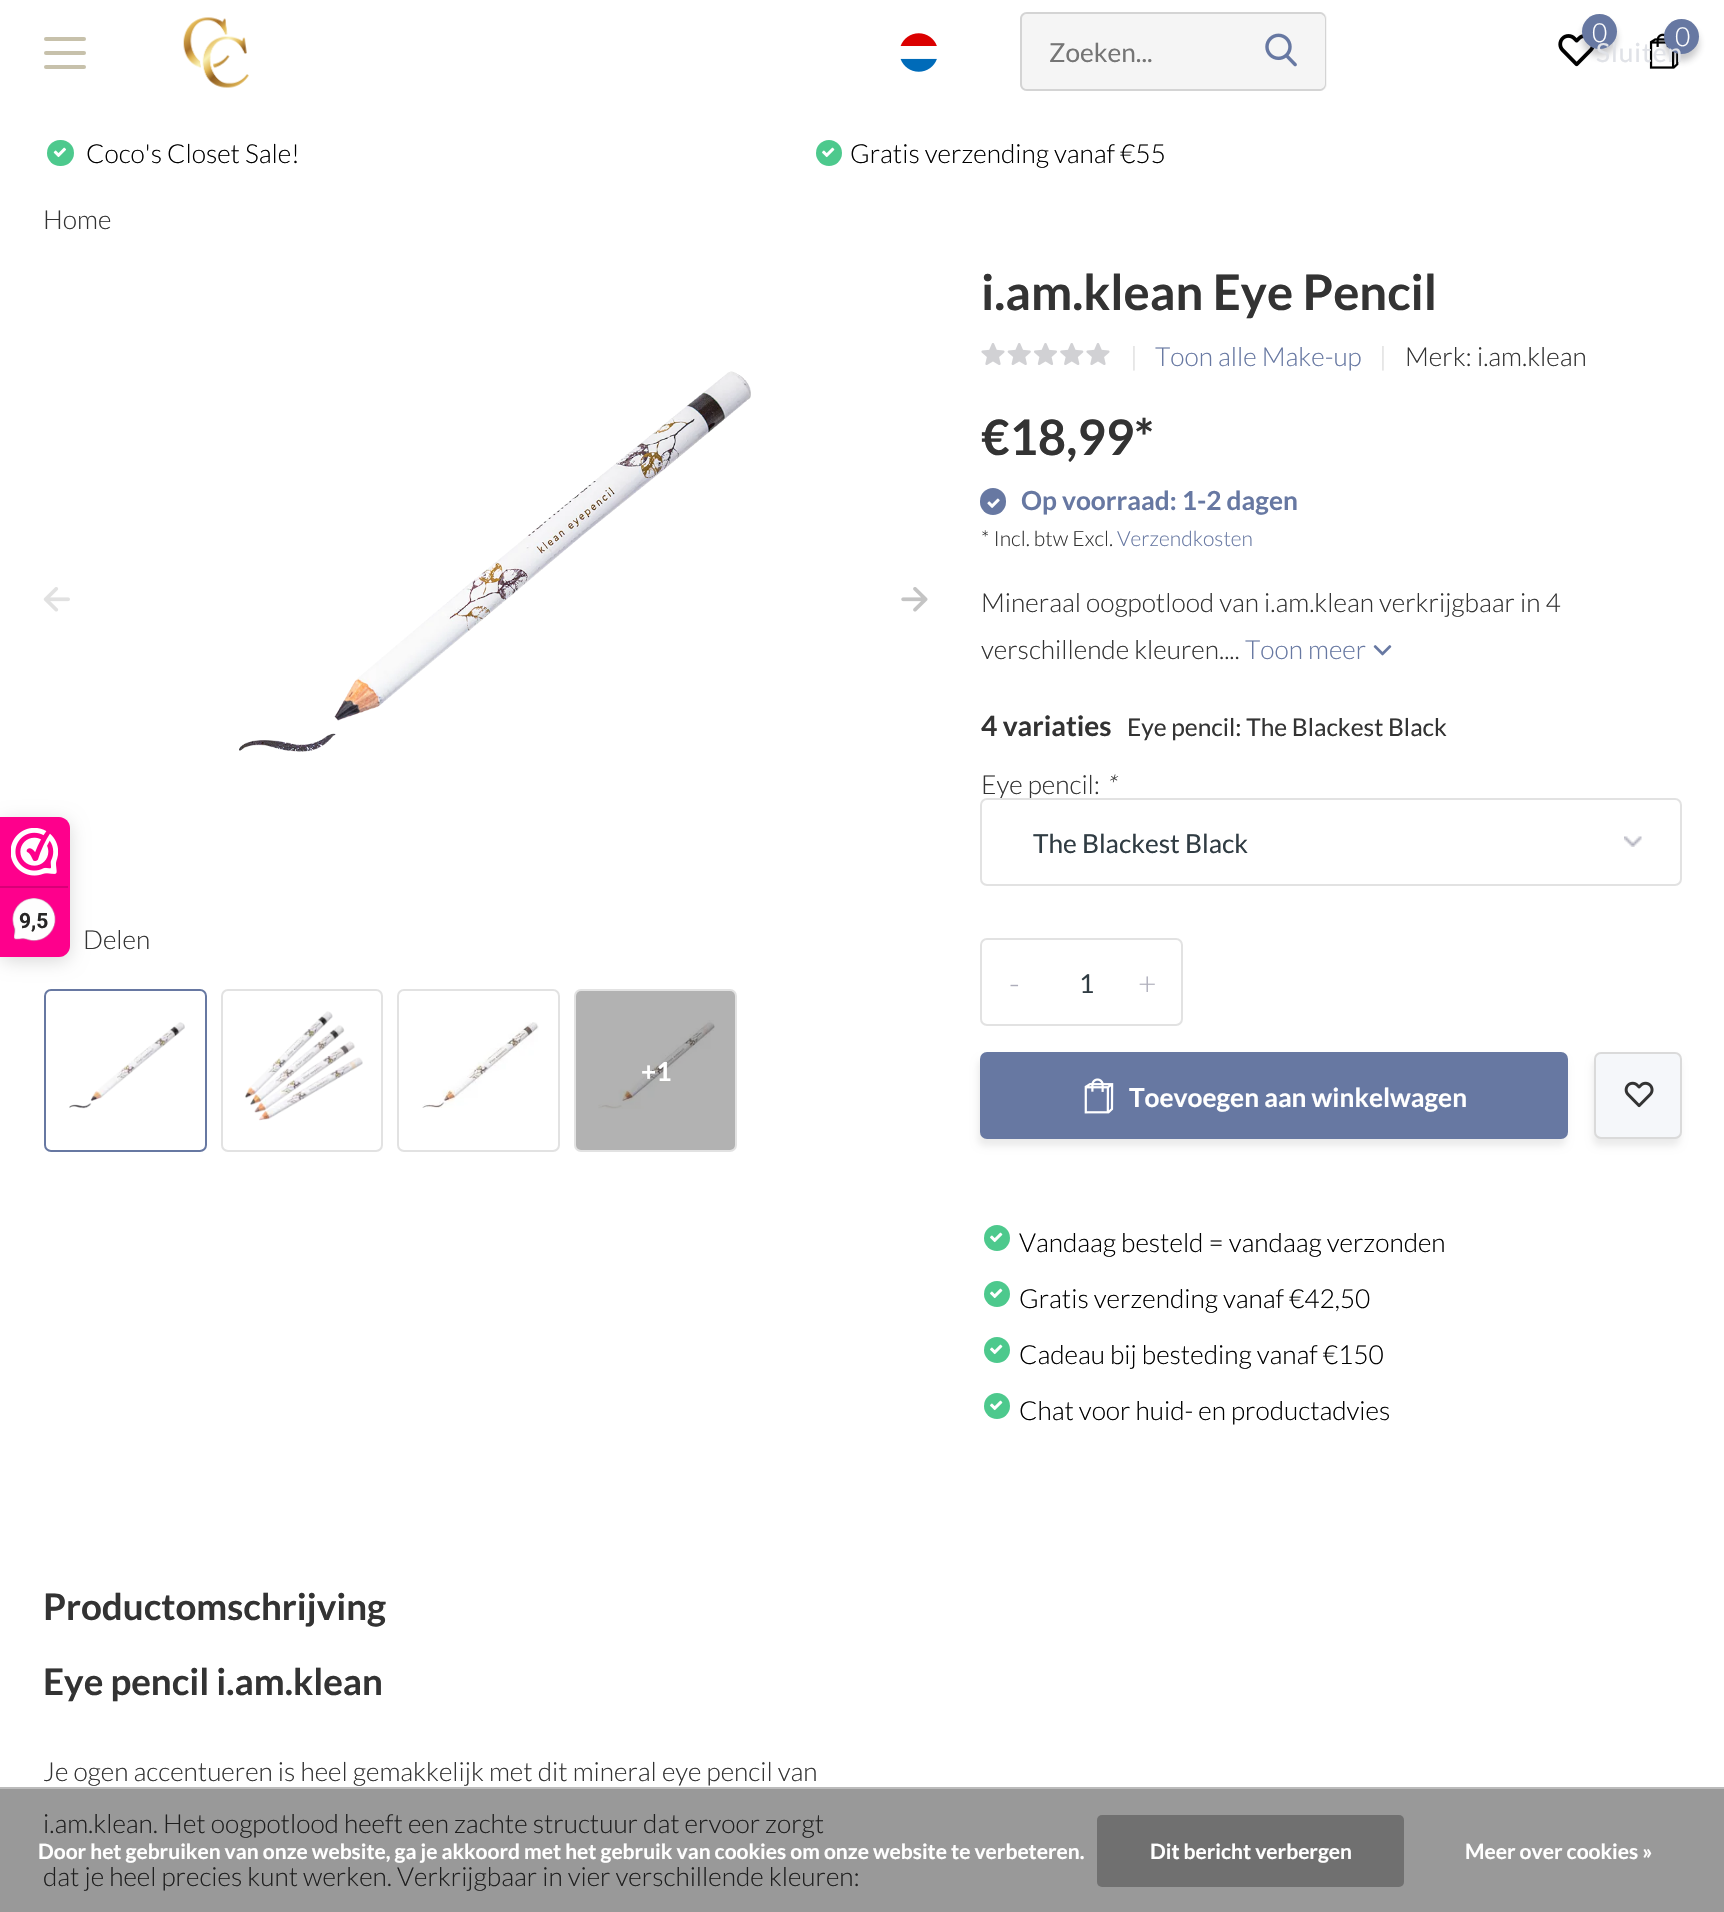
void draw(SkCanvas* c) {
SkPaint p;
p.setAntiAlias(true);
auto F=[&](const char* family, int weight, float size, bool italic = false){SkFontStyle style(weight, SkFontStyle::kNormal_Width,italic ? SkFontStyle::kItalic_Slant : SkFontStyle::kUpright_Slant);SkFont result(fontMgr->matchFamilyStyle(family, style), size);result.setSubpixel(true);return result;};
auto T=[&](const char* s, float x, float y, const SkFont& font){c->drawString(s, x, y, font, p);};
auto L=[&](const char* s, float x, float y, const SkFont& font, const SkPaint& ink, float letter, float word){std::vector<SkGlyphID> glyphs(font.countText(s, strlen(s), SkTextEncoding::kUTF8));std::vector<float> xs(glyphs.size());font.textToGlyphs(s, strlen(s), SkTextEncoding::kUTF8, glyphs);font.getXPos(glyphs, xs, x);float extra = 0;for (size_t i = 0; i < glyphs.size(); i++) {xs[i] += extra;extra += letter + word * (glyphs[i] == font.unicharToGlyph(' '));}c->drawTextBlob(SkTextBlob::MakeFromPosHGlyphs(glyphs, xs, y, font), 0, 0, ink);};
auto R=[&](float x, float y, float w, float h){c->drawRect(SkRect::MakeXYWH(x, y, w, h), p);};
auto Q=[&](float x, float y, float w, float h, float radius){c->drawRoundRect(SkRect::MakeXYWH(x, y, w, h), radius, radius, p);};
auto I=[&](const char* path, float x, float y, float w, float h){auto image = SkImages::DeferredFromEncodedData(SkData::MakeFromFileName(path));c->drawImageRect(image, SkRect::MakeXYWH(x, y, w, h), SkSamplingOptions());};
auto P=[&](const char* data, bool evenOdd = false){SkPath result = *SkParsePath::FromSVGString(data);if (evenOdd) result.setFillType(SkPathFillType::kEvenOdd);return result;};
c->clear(0xffffffff);
p.setColor(0xff999999);
R(0,1789,1724,123);
p.setColor(0xffc7c1ab);
Q(44,37,42,4,2);
Q(44,51,42,4,2);
Q(44,65,42,4,2);
I("1.png",183,17,66,71);
I("2.png",900,33,37,39);
p.setColor(0xfff5f5f5);
c->drawPath(P("M1027 12h212v79h-212c-4 0-7-3-7-7v-65c0-4 3-7 7-7z"),p);
p.setColor(0xffd4d4d4);
c->drawPath(P("M1027 12h212v79h-212c-4 0-7-3-7-7v-65c0-4 3-7 7-7zm0 2h212v75h-212c-3 0-5-2-5-5v-65c0-3 2-5 5-5z",true),p);
auto f1 = F("Lato",400,26.25);
p.setColor(0xff757575);
T("Zoeken...",1049,62,f1);
p.setColor(0xfff5f5f5);
c->drawPath(P("M1239 12h81c4 0 7 3 7 7v65c0 4-3 7-7 7h-81z"),p);
p.setColor(0xffd4d4d4);
c->drawPath(P("M1239 12h81c3 0 6 3 6 7v65c0 4-3 7-6 7h-81zm0 2h81c2 0 5 2 5 5v65c0 3-3 5-5 5h-81z",true),p);
I("3.png",1265,33,32,34);
I("4.png",1558,34,37,33);
p.setColor(0x40282830);
p.setMaskFilter(SkMaskFilter::MakeBlur(kNormal_SkBlurStyle, 3.5));
c->drawRoundRect(SkRect::MakeXYWH(1582,21,35,35),17.5,17.5,p);
p.setMaskFilter(nullptr);
p.setColor(0xff6778a2);
c->drawCircle(1599.5,31.5,17.5,p);
auto f2 = F("Lato",300,26.25);
p.setColor(0xffffffff);
T("0",1592,42,f2);
I("5.png",1649,33,30,36);
p.setColor(0x40282830);
p.setMaskFilter(SkMaskFilter::MakeBlur(kNormal_SkBlurStyle, 3.5));
c->drawRoundRect(SkRect::MakeXYWH(1664,26,35,35),17.5,17.5,p);
p.setMaskFilter(nullptr);
p.setColor(0xff6778a2);
c->drawCircle(1681.5,36.5,17.5,p);
p.setColor(0xffffffff);
T("0",1675,46,f2);
p.setColor(0xffe0e2e7);
L("Sluiten",1596,62,f1,p,1,0);
p.setColor(0xff4dc98d);
Q(47,140,27,26,13);
I("6.png",53,147,13,11);
p.setColor(0xff000000);
T("Coco's Closet Sale!",86,163,f2);
p.setColor(0xff4dc98d);
c->drawCircle(829,153,13,p);
I("7.png",822,147,13,11);
p.setColor(0xff000000);
T("Gratis verzending vanaf €55",850,163,f2);
p.setColor(0xff333333);
T("Home",43,229,f2);
p.setColor(0x26000000);
p.setMaskFilter(SkMaskFilter::MakeBlur(kNormal_SkBlurStyle, 9));
c->drawRoundRect(SkRect::MakeXYWH(0,821,70,140),11,11,p);
p.setMaskFilter(nullptr);
p.setColor(0xfffe008c);
c->drawPath(P("M0 817h59c6 0 11 5 11 11v118c0 6-5 11-11 11h-59z"),p);
I("8.png",11,828,47,48);
p.setColor(0xffd80077);
R(0,886,68,2);
I("9.png",12,898,44,44);
auto f3 = F("Roboto",700,21);
p.setColor(0xff272626);
T("9,5",19,928,f3);
I("10.png",239,371,512,381);
I("11.png",43,587,27,25);
I("12.png",901,587,27,25);
p.setColor(0xff333333);
T("Delen",83,949,f2);
p.setStroke(true);
p.setStrokeWidth(2);
p.setColor(0xff6778a2);
c->drawRoundRect(SkRect::MakeXYWH(45,990,161,161),6,6,p);
I("13.png",69,1022,116,87);
p.setColor(0xffe2e2e2);
c->drawRoundRect(SkRect::MakeXYWH(222,990,160,161),6,6,p);
I("14.png",245,1011,118,110);
c->drawRoundRect(SkRect::MakeXYWH(398,990,161,161),6,6,p);
I("15.png",422,1022,117,86);
c->drawRoundRect(SkRect::MakeXYWH(575,990,161,161),6,6,p);
I("16.png",598,1020,117,89);
p.setStroke(false);
p.setColor(0x4d000000);
Q(576,991,159,159,5);
auto f4 = F("Lato",700,26.25);
p.setColor(0xffffffff);
T("+1",641,1081,f4);
auto f5 = F("Lato",700,49);
p.setColor(0xff333333);
T("i.am.klean Eye Pencil",981,310,f5);
I("17.png",981,343,24,22);
I("18.png",1007,343,24,22);
I("19.png",1034,343,23,22);
I("20.png",1060,343,24,22);
I("17.png",1086,343,24,22);
p.setColor(0xffdadada);
T("|",1130,366,f2);
p.setColor(0xff6778a2);
T("Toon alle Make-up",1155,366,f2);
p.setColor(0xffdadada);
T("|",1379,366,f2);
p.setColor(0xff333333);
T("Merk: i.am.klean",1405,366,f2);
T("€18,99*",981,455,f5);
p.setColor(0xff6778a2);
Q(980,488,26,27,13);
I("21.png",987,498,13,10);
T("Op voorraad: 1-2 dagen",1021,510,f4);
auto f6 = F("Lato",300,21);
p.setColor(0xff333333);
T("* Incl. btw Excl.",981,546,f6);
p.setColor(0xff6778a2);
T("Verzendkosten",1117,546,f6);
p.setColor(0xff333333);
T("Mineraal oogpotlood van i.am.klean verkrijgbaar in 4",981,612,f2);
T("verschillende kleuren....",981,659,f2);
p.setColor(0xff6778a2);
T("Toon meer",1245,659,f2);
I("22.png",1373,645,19,11);
auto f7 = F("Lato",700,28);
p.setColor(0xff333333);
T("4 variaties",981,736,f7);
auto f8 = F("Lato",400,24.5);
T("Eye pencil: The Blackest Black",1127,736,f8);
T("Eye pencil:",981,794,f2);
auto f9 = F("Lato",300,26.25,true);
T("*",1105,794,f9);
p.setColor(0xffffffff);
Q(980,798,702,88,7);
I("23.png",1624,836,18,11);
p.setStroke(true);
p.setColor(0xffe2e2e2);
c->drawRoundRect(SkRect::MakeXYWH(981,799,700,86),6,6,p);
p.setStroke(false);
p.setColor(0xff303c43);
T("The Blackest Black",1033,853,f1);
p.setStroke(true);
p.setColor(0xffe2e2e2);
c->drawRoundRect(SkRect::MakeXYWH(981,939,201,86),6,6,p);
p.setStroke(false);
p.setColor(0xff303c43);
T("1",1079,993,f1);
auto f10 = F("Lato",300,32);
p.setColor(0xffadadba);
T("-",1009,995,f10);
T("+",1138,995,f10);
p.setColor(0x14000000);
p.setMaskFilter(SkMaskFilter::MakeBlur(kNormal_SkBlurStyle, 3.5));
c->drawRoundRect(SkRect::MakeXYWH(978,1059,588,87),7,7,p);
p.setMaskFilter(nullptr);
p.setColor(0xff6778a2);
Q(980,1052,588,87,7);
I("24.png",1084,1078,30,36);
p.setColor(0xffffffff);
T("Toevoegen aan winkelwagen",1129,1107,f4);
p.setColor(0x14000000);
p.setMaskFilter(SkMaskFilter::MakeBlur(kNormal_SkBlurStyle, 3.5));
c->drawRoundRect(SkRect::MakeXYWH(1593,1059,87,87),7,7,p);
p.setMaskFilter(nullptr);
p.setColor(0xfff5f7fa);
c->drawRoundRect(SkRect::MakeXYWH(1595,1053,86,85),6,6,p);
p.setStroke(true);
p.setColor(0xffdadada);
c->drawRoundRect(SkRect::MakeXYWH(1595,1053,86,85),6,6,p);
I("25.png",1624,1081,30,27);
p.setStroke(false);
p.setColor(0xff4dc98d);
c->drawCircle(997,1238,13,p);
I("7.png",990,1232,13,11);
p.setColor(0xff000000);
T("Vandaag besteld = vandaag verzonden",1019,1252,f2);
p.setColor(0xff4dc98d);
c->drawCircle(997,1294,13,p);
I("7.png",990,1288,13,11);
p.setColor(0xff000000);
T("Gratis verzending vanaf €42,50",1019,1308,f2);
p.setColor(0xff4dc98d);
c->drawCircle(997,1350,13,p);
I("7.png",990,1344,13,11);
p.setColor(0xff000000);
T("Cadeau bij besteding vanaf €150",1019,1364,f2);
p.setColor(0xff4dc98d);
c->drawCircle(997,1406,13,p);
I("7.png",990,1400,13,11);
p.setColor(0xff000000);
T("Chat voor huid- en productadvies",1019,1420,f2);
auto f11 = F("Lato",700,36.75);
p.setColor(0xff333333);
T("Productomschrijving",43,1620,f11);
T("Eye pencil i.am.klean",43,1695,f11);
T("Je ogen accentueren is heel gemakkelijk met dit mineral eye pencil van",43,1781,f2);
p.setColor(0xff1f1f1f);
T("i.am.klean. Het oogpotlood heeft een zachte structuur dat ervoor zorgt",43,1833,f2);
T("dat je heel precies kunt werken. Verkrijgbaar in vier verschillende kleuren:",43,1886,f2);
p.setColor(0xffbbbbbb);
R(0,1787,1724,2);
auto f12 = F("Lato",700,21);
p.setColor(0xffffffff);
T("Door het gebruiken van onze website, ga je akkoord met het gebruik van cookies om onze website te verbeteren.",38,1859,f12);
p.setColor(0xff707070);
Q(1097,1815,307,72,5);
p.setColor(0xffffffff);
T("Dit bericht verbergen",1150,1859,f12);
T("Meer over cookies »",1465,1859,f12);
}
